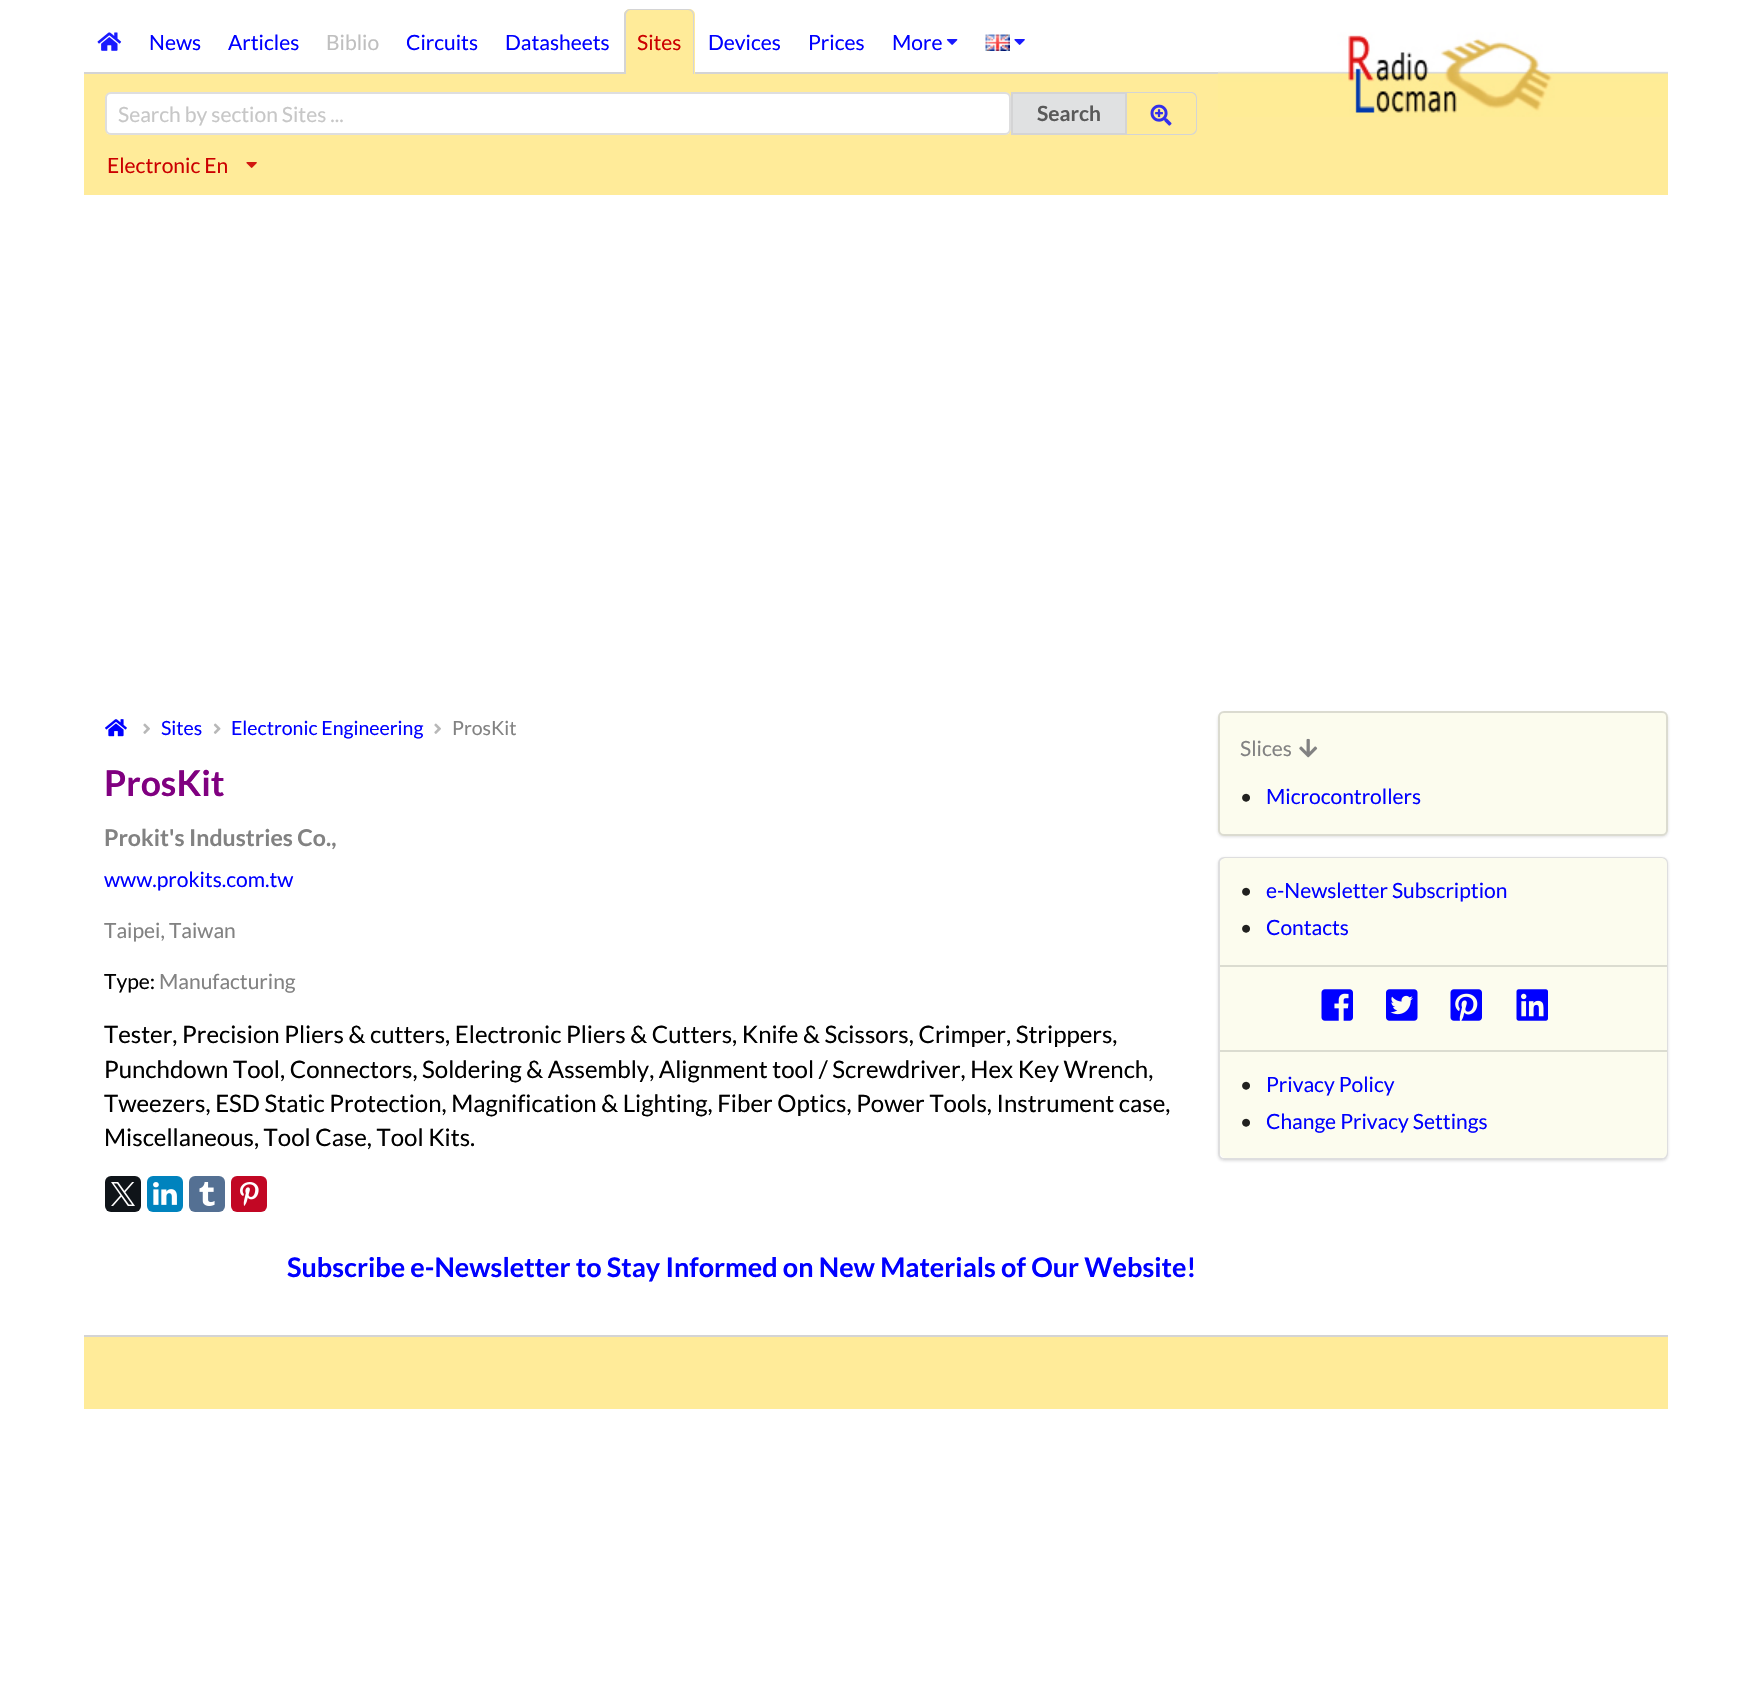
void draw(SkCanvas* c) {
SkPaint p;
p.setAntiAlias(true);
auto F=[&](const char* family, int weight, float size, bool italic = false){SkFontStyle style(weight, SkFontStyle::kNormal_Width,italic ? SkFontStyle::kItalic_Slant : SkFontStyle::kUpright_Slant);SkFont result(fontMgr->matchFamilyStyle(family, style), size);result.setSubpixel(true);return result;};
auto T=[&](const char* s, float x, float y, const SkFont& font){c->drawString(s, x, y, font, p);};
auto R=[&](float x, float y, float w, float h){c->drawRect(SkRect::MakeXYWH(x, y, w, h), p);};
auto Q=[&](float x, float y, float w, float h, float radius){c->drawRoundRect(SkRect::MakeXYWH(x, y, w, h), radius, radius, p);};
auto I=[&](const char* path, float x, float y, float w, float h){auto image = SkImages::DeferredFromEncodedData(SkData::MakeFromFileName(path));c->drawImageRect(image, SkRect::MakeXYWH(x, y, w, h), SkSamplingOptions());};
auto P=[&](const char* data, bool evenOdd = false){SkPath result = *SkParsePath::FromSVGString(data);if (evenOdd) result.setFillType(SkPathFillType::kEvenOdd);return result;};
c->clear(0xffffffff);
p.setColor(0xffffeb99);
R(84,74,1134,121);
p.setColor(0xffd4d4d5);
R(84,72,1134,2);
I("1.png",97,32,25,19);
auto f1 = F("Lato",400,21);
p.setColor(0xff0000ff);
T("News",149,50,f1);
T("Articles",228,50,f1);
p.setColor(0xffbfbfbf);
T("Biblio",326,50,f1);
p.setColor(0xff0000ff);
T("Circuits",406,50,f1);
T("Datasheets",505,50,f1);
p.setColor(0xffffeb99);
c->drawPath(P("M630 9h59c3.5 0 6 2.5 6 6v59h-71v-59c0-3.5 2.5-6 6-6z"),p);
p.setColor(0xffd4d4d5);
c->drawPath(P("M630 9h58c4 0 6 3 6 6v59h-70v-59c0-3 3-6 6-6zm0 1h58c3 0 5 3 5 5v59h-67v-59c0-2 2-5 4-5z",true),p);
p.setColor(0xffcc0000);
T("Sites",637,50,f1);
p.setColor(0xff0000ff);
T("Devices",708,50,f1);
T("Prices",808,50,f1);
T("More",892,50,f1);
I("2.png",946,39,12,6);
I("3.png",985,34,25,17);
I("4.png",1014,39,11,6);
p.setColor(0xffffffff);
Q(105,92,906,43,6);
p.setStroke(true);
p.setStrokeWidth(2);
p.setColor(0x26222426);
c->drawRoundRect(SkRect::MakeXYWH(106,93,904,41),5,5,p);
p.setStroke(false);
p.setColor(0xffc7c7c7);
T("Search by section Sites ...",118,122,f1);
p.setColor(0xffe0e1e2);
c->drawRect(SkRect::MakeXYWH(1012,93,114,41),p);
p.setStroke(true);
p.setColor(0xffd4d4d5);
c->drawRect(SkRect::MakeXYWH(1012,93,114,41),p);
auto f2 = F("Lato",700,21);
p.setStroke(false);
p.setColor(0xff5a5a5a);
T("Search",1037,121,f2);
p.setColor(0xffd4d4d5);
c->drawPath(P("M1126 92h65c3 0 6 2 6 6v31c0 3-3 6-6 6h-65zm0 1h65c2 0 5 2 5 5v31c0 2-3 5-5 5h-65z",true),p);
I("5.png",1150,104,22,22);
p.setColor(0xffcc0000);
T("Electronic En",107,173,f1);
I("6.png",246,162,11,6);
p.setColor(0xffffeb99);
R(1218,117,450,78);
I("7.png",1218,9,450,108);
I("8.png",105,719,22,18);
I("9.png",143,723,7,11);
auto f3 = F("Lato",400,19.5);
p.setColor(0xff0000ff);
T("Sites",161,735,f3);
I("10.png",213,723,8,11);
T("Electronic Engineering",231,735,f3);
I("9.png",434,723,7,11);
p.setColor(0xff828282);
T("ProsKit",452,735,f3);
auto f4 = F("Lato",700,35.5);
p.setColor(0xff800080);
T("ProsKit",104,796,f4);
auto f5 = F("Lato",700,23.1);
p.setColor(0xff828282);
T("Prokit's Industries Co.,",104,846,f5);
p.setColor(0xff0000ff);
T("www.prokits.com.tw",104,887,f1);
p.setColor(0xff828282);
T("Taipei, Taiwan",104,938,f1);
p.setColor(0xff000000);
T("Type:",104,989,f1);
p.setColor(0xff828282);
T("Manufacturing",159,989,f1);
auto f6 = F("Lato",400,24);
p.setColor(0xff000000);
T("Tester, Precision Pliers & cutters, Electronic Pliers & Cutters, Knife & Scissors, Crimper, Strippers,",104,1043,f6);
T("Punchdown Tool, Connectors, Soldering & Assembly, Alignment tool / Screwdriver, Hex Key Wrench,",104,1078,f6);
T("Tweezers, ESD Static Protection, Magnification & Lighting, Fiber Optics, Power Tools, Instrument case,",104,1112,f6);
T("Miscellaneous, Tool Case, Tool Kits.",104,1146,f6);
p.setColor(0xff0f1419);
Q(105,1176,36,36,6);
I("11.png",111,1182,24,24);
p.setColor(0xff0083be);
Q(147,1176,36,36,6);
I("12.png",153,1182,24,23);
p.setColor(0xff547093);
Q(189,1176,36,36,6);
I("13.png",199,1182,16,24);
p.setColor(0xffc20724);
Q(231,1176,36,36,6);
I("14.png",240,1182,19,24);
auto f7 = F("Lato",700,27);
p.setColor(0xff0000ff);
T("Subscribe e-Newsletter to Stay Informed on New Materials of Our Website!",287,1277,f7);
p.setColor(0x26222426);
p.setMaskFilter(SkMaskFilter::MakeBlur(kNormal_SkBlurStyle, 1.5));
c->drawRoundRect(SkRect::MakeXYWH(1218,713,450,124),6,6,p);
p.setMaskFilter(nullptr);
p.setColor(0xfffcfcee);
Q(1218,711,450,125,6);
p.setStroke(true);
p.setColor(0x26222426);
c->drawRoundRect(SkRect::MakeXYWH(1219,712,448,123),5,5,p);
p.setStroke(false);
p.setColor(0xff828282);
T("Slices",1240,756,f1);
I("15.png",1299,738,19,20);
p.setColor(0xff21211f);
T("•",1240,804,f1);
p.setColor(0xff0000ff);
T("Microcontrollers",1266,804,f1);
c->save();
c->clipPath(P("M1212 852h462v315h-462zm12 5h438c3.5 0 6 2.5 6 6v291c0 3.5-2.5 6-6 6h-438c-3.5 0-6-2.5-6-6v-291c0-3.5 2.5-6 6-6z",true),true);
p.setColor(0x26222426);
p.setMaskFilter(SkMaskFilter::MakeBlur(kNormal_SkBlurStyle, 1.5));
c->drawRoundRect(SkRect::MakeXYWH(1218,858,450,303),6,6,p);
p.setMaskFilter(nullptr);
c->restore();
p.setStroke(true);
c->drawRoundRect(SkRect::MakeXYWH(1219,858,448,301),5,5,p);
p.setStroke(false);
p.setColor(0xfffcfcee);
c->drawPath(P("M1226 858h435c3.5 0 6 2.5 6 6v101h-447v-101c0-3.5 2.5-6 6-6z"),p);
p.setColor(0xff21211f);
T("•",1240,898,f1);
p.setColor(0xff0000ff);
T("e-Newsletter Subscription",1266,898,f1);
p.setColor(0xff21211f);
T("•",1240,935,f1);
p.setColor(0xff0000ff);
T("Contacts",1266,935,f1);
p.setColor(0xfffcfcee);
R(1220,967,447,83);
p.setColor(0xffdbdcd0);
R(1220,965,447,2);
I("16.png",1321,989,32,32);
I("17.png",1386,989,32,32);
I("18.png",1450,989,32,32);
I("19.png",1516,989,32,32);
p.setColor(0xfffcfcee);
c->drawPath(P("M1220 1050h447v102c0 3.5-2.5 6-6 6h-435c-3.5 0-6-2.5-6-6z"),p);
p.setColor(0xffdbdcd0);
R(1220,1050,447,2);
p.setColor(0xff21211f);
T("•",1240,1092,f1);
p.setColor(0xff0000ff);
T("Privacy Policy",1266,1092,f1);
p.setColor(0xff21211f);
T("•",1240,1129,f1);
p.setColor(0xff0000ff);
T("Change Privacy Settings",1266,1129,f1);
p.setColor(0xffffeb99);
R(84,1337,1584,72);
p.setColor(0xffd4d4d5);
R(84,1335,1584,2);
}
